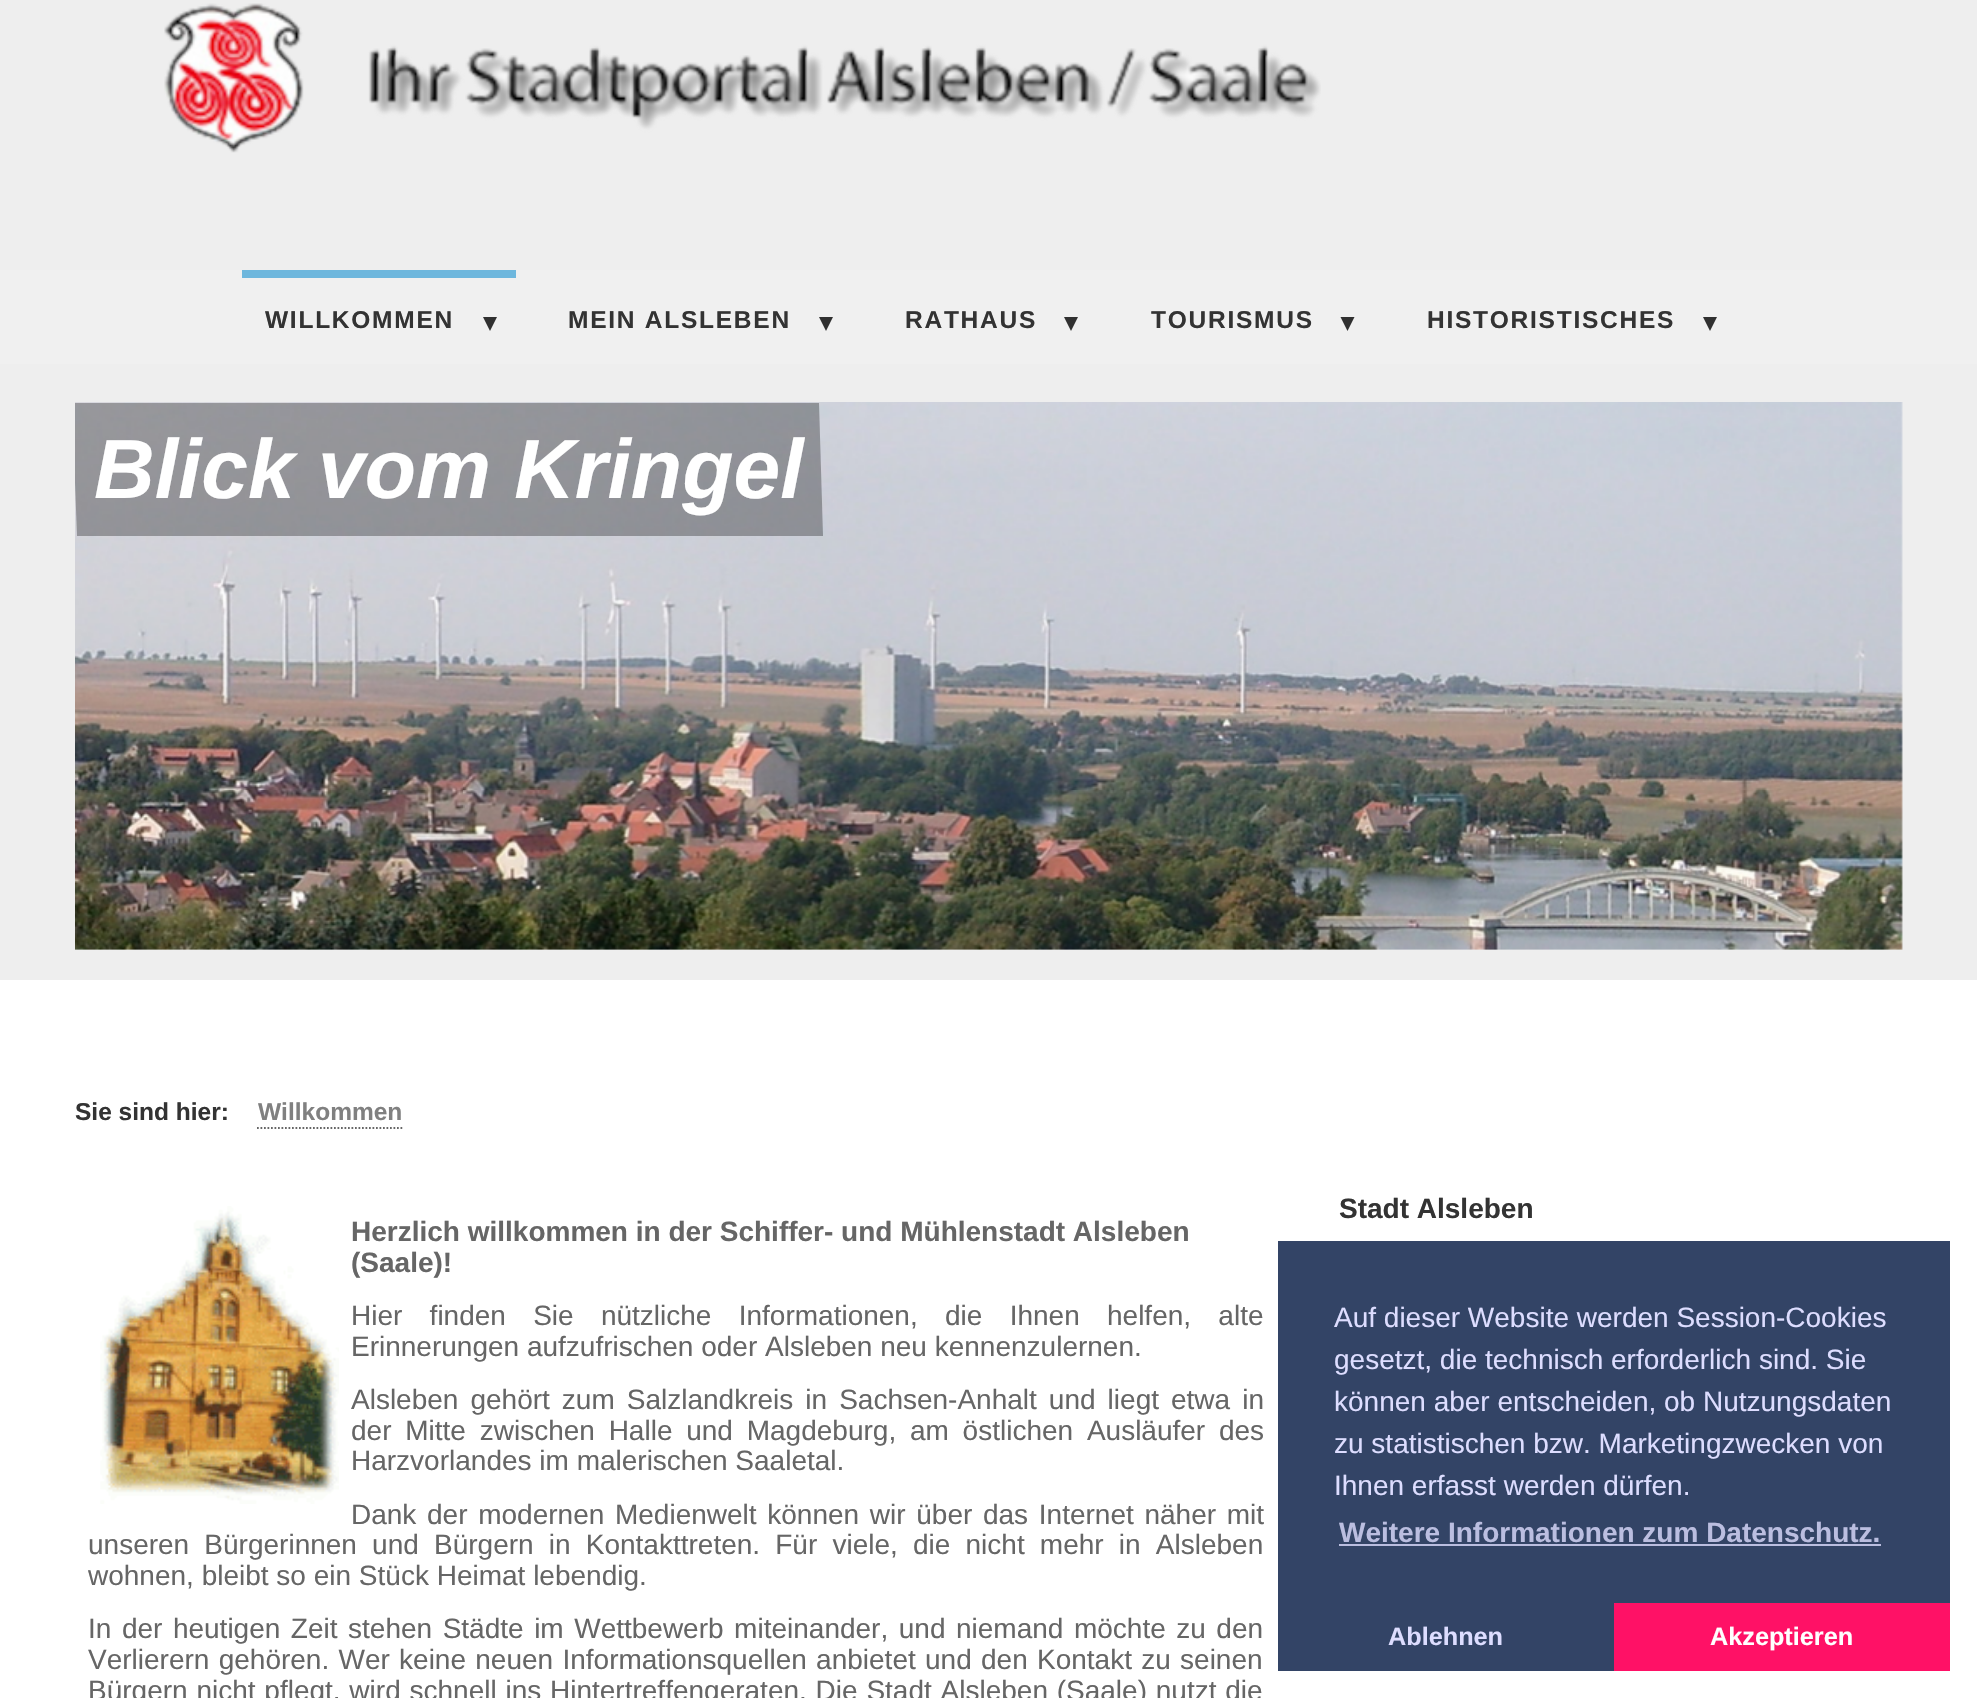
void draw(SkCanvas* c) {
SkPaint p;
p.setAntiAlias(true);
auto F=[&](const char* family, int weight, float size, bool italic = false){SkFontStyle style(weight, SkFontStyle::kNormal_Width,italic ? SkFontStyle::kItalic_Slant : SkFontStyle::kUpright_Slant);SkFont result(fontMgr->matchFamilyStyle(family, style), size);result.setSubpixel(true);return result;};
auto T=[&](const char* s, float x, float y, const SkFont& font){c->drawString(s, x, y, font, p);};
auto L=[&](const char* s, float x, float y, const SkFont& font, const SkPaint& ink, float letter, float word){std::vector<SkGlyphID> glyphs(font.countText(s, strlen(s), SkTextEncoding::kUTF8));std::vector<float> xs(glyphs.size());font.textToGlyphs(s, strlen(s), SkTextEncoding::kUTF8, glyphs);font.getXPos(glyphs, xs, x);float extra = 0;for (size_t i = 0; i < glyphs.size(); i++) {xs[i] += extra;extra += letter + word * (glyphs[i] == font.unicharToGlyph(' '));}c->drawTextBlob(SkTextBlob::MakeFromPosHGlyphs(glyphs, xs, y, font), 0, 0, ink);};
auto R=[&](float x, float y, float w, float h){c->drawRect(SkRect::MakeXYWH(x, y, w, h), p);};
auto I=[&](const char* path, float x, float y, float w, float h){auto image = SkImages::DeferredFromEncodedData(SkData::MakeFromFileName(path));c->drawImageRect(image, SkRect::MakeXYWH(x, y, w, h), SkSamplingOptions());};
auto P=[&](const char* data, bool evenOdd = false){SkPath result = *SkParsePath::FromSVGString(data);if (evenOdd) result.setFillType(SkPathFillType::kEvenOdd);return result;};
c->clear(0xffffffff);
p.setColor(0xffeeeeee);
R(0,0,1977,270);
I("1.png",164,3,1157,150);
p.setColor(0xfff0f0f0);
R(0,270,1977,94);
p.setColor(0xff6eb7dd);
R(242,270,274,8);
auto f1 = F("Liberation Sans",700,24.5);
p.setColor(0xff333333);
L("WILLKOMMEN",265,328,f1,p,1.75,0);
p.setColor(0xff303030);
c->drawPath(P("M483 317h14l-7 14z"),p);
p.setColor(0xff333333);
L("MEIN ALSLEBEN",568,328,f1,p,1.75,0);
p.setColor(0xff303030);
c->drawPath(P("M819 317h14l-7 14z"),p);
p.setColor(0xff333333);
L("RATHAUS",905,328,f1,p,1.75,0);
p.setColor(0xff303030);
c->drawPath(P("M1064 317h14l-7 14z"),p);
p.setColor(0xff333333);
L("TOURISMUS",1151,328,f1,p,1.75,0);
p.setColor(0xff303030);
c->drawPath(P("M1340.5 317h14l-7 14z"),p);
p.setColor(0xff333333);
L("HISTORISTISCHES",1427,328,f1,p,1.75,0);
p.setColor(0xff303030);
c->drawPath(P("M1703 317h14l-7 14z"),p);
p.setColor(0xffeeeeee);
R(0,364,1977,616);
I("2.png",75,402,1828,548);
c->save();
c->clipRect(SkRect::MakeXYWH(75,403,1827,549));
p.setColor(0x4d000000);
c->drawPath(P("M72 403h747l4 133h-746z"),p);
c->restore();
auto f2 = F("Liberation Sans",700,84,true);
p.setColor(0xffffffff);
T("Blick vom Kringel",94,498,f2);
p.setColor(0xff333333);
T("Sie sind hier:",75,1120,f1);
p.setColor(0xff808080);
T("Willkommen",258,1120,f1);
p.setStroke(true);
p.setStrokeWidth(1.8);
p.setColor(0xff666666);
p.setPathEffect(SkDashPathEffect::Make({{1.75f,1.75f}}, 0));
c->drawPath(P("M257 1128h147"),p);
p.setPathEffect(nullptr);
auto f3 = F("Liberation Sans",700,28);
p.setStroke(false);
p.setColor(0xff333333);
T("Stadt Alsleben",1339,1218,f3);
I("3.png",100,1206,239,298);
p.setColor(0xff666666);
T("Herzlich willkommen in der Schiffer- und Mühlenstadt Alsleben",351,1241,f3);
T("(Saale)!",351,1272,f3);
auto f4 = F("Liberation Sans",400,28);
L("Hier finden Sie nützliche Informationen, die Ihnen helfen, alte",351,1325,f4,p,0,19.5);
T("Erinnerungen aufzufrischen oder Alsleben neu kennenzulernen.",351,1356,f4);
L("Alsleben gehört zum Salzlandkreis in Sachsen-Anhalt und liegt etwa in",351,1409,f4,p,0,4.25);
L("der Mitte zwischen Halle und Magdeburg, am östlichen Ausläufer des",351,1440,f4,p,0,6);
T("Harzvorlandes im malerischen Saaletal.",351,1470,f4);
L("Dank der modernen Medienwelt können wir über das Internet näher mit",351,1524,f4,p,0,2.9);
L("unseren Bürgerinnen und Bürgern in Kontakttreten. Für viele, die nicht mehr in Alsleben",88,1554,f4,p,0,7.4);
T("wohnen, bleibt so ein Stück Heimat lebendig.",88,1585,f4);
L("In der heutigen Zeit stehen Städte im Wettbewerb miteinander, und niemand möchte zu den",88,1638,f4,p,0,2.75);
L("Verlierern gehören. Wer keine neuen Informationsquellen anbietet und den Kontakt zu seinen",88,1669,f4,p,0,1.5);
L("Bürgern nicht pflegt, wird schnell ins Hintertreffengeraten. Die Stadt Alsleben (Saale) nutzt die",88,1700,f4,p,0,1);
p.setColor(0xff334466);
R(1278,1241,672,430);
p.setColor(0xffddddff);
T("Auf dieser Website werden Session-Cookies",1334,1327,f4);
T("gesetzt, die technisch erforderlich sind. Sie",1334,1369,f4);
T("können aber entscheiden, ob Nutzungsdaten",1334,1411,f4);
T("zu statistischen bzw. Marketingzwecken von",1334,1453,f4);
T("Ihnen erfasst werden dürfen.",1334,1495,f4);
p.setColor(0xffbbbee0);
T("Weitere Informationen zum Datenschutz.",1339,1542,f3);
R(1339,1544,542,2);
auto f5 = F("Liberation Sans",700,25.25);
p.setColor(0xffddddff);
T("Ablehnen",1388,1645,f5);
p.setColor(0xffff1166);
R(1614,1603,336,68);
p.setColor(0xffffffff);
T("Akzeptieren",1710,1645,f5);
}
